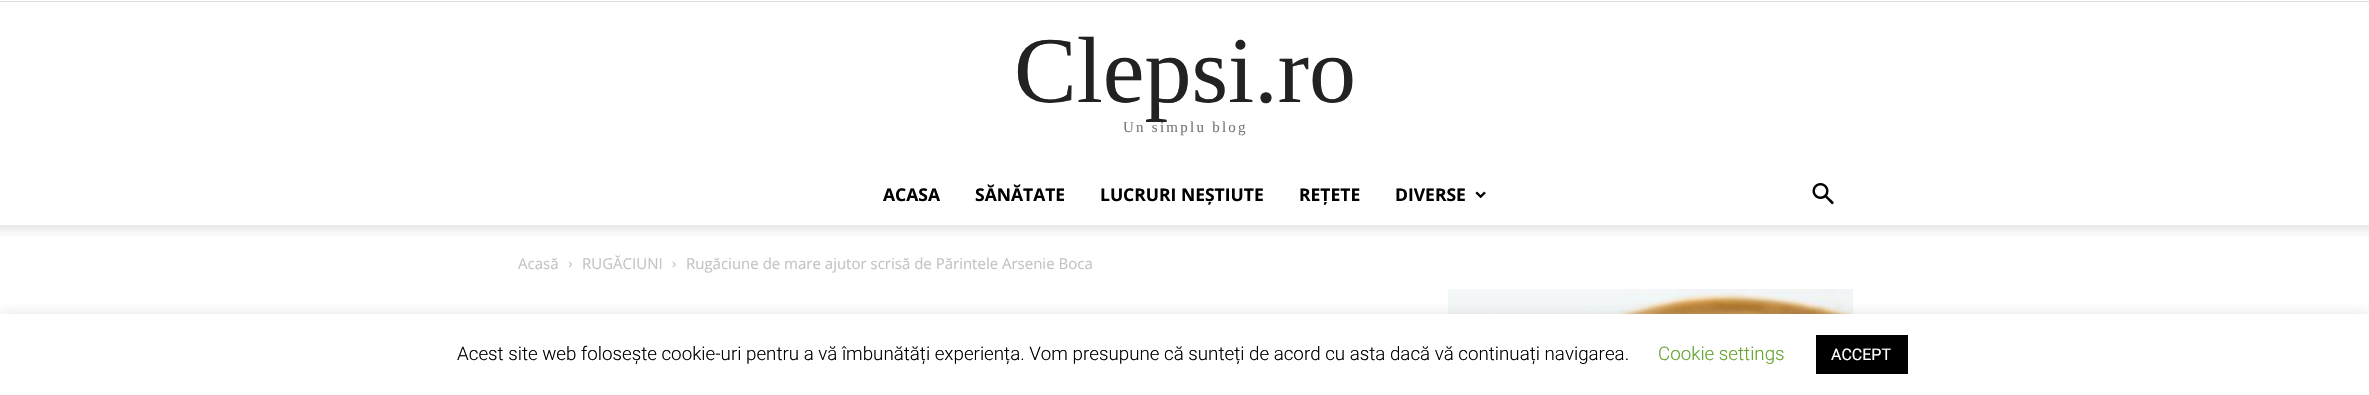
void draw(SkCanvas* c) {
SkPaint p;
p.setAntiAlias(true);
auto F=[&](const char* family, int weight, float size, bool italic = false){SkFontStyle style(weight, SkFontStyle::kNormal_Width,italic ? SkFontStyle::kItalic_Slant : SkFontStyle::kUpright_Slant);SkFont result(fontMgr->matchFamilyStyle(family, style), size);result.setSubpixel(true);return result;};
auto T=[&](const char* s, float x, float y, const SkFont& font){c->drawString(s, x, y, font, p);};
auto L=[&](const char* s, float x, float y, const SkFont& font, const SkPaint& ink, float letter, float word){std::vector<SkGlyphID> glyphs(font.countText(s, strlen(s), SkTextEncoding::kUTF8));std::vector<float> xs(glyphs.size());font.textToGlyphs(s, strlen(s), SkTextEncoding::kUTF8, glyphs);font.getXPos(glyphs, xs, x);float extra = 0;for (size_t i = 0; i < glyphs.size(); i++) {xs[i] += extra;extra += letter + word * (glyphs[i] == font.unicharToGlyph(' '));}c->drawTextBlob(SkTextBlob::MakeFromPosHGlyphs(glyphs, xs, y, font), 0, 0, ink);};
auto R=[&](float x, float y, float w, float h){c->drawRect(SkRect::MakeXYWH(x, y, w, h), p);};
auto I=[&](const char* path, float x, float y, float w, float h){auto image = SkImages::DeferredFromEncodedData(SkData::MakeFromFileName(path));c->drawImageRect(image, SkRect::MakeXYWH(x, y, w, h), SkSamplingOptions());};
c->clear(0xffffffff);
p.setColor(0xffe0e0e0);
R(0,1,2369,1);
auto f1 = F("Liberation Serif",400,94);
p.setColor(0xff222222);
T("Clepsi.ro",1014,102,f1);
auto f2 = F("Liberation Serif",400,15);
p.setColor(0xff777777);
L("Un simplu blog",1123,132,f2,p,2.25,0);
auto f3 = F("Open Sans",700,17.5);
p.setColor(0xff000000);
T("ACASA",883,201,f3);
T("SĂNĂTATE",975,201,f3);
T("LUCRURI NEȘTIUTE",1100,201,f3);
T("REȚETE",1299,201,f3);
T("DIVERSE",1395,201,f3);
I("1.png",1475,191,11,8);
I("2.png",1812,183,22,22);
I("3.png",0,225,2369,11);
auto f4 = F("Open Sans",400,15);
p.setColor(0xffc3c3c3);
T("Acasă",518,269,f4);
I("4.png",568,261,4,7);
T("RUGĂCIUNI",582,269,f4);
I("5.png",672,261,4,7);
T("Rugăciune de mare ajutor scrisă de Părintele Arsenie Boca",686,269,f4);
I("6.png",1448,289,405,25);
p.setColor(0x4dacabab);
p.setMaskFilter(SkMaskFilter::MakeBlur(kNormal_SkBlurStyle, 6));
c->drawRect(SkRect::MakeXYWH(0,313,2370,81),p);
p.setMaskFilter(nullptr);
p.setColor(0xffffffff);
R(0,314,2369,81);
auto f5 = F("Roboto",300,18.75);
p.setColor(0xff000000);
T("Acest site web folosește cookie-uri pentru a vă îmbunătăți experiența. Vom presupune că sunteți de acord cu asta dacă vă continuați navigarea.",457,360,f5);
p.setColor(0xff62a329);
T("Cookie settings",1658,360,f5);
p.setColor(0xff000000);
R(1816,335,92,39);
auto f6 = F("Roboto",400,16);
p.setColor(0xffffffff);
T("ACCEPT",1831,360,f6);
}
